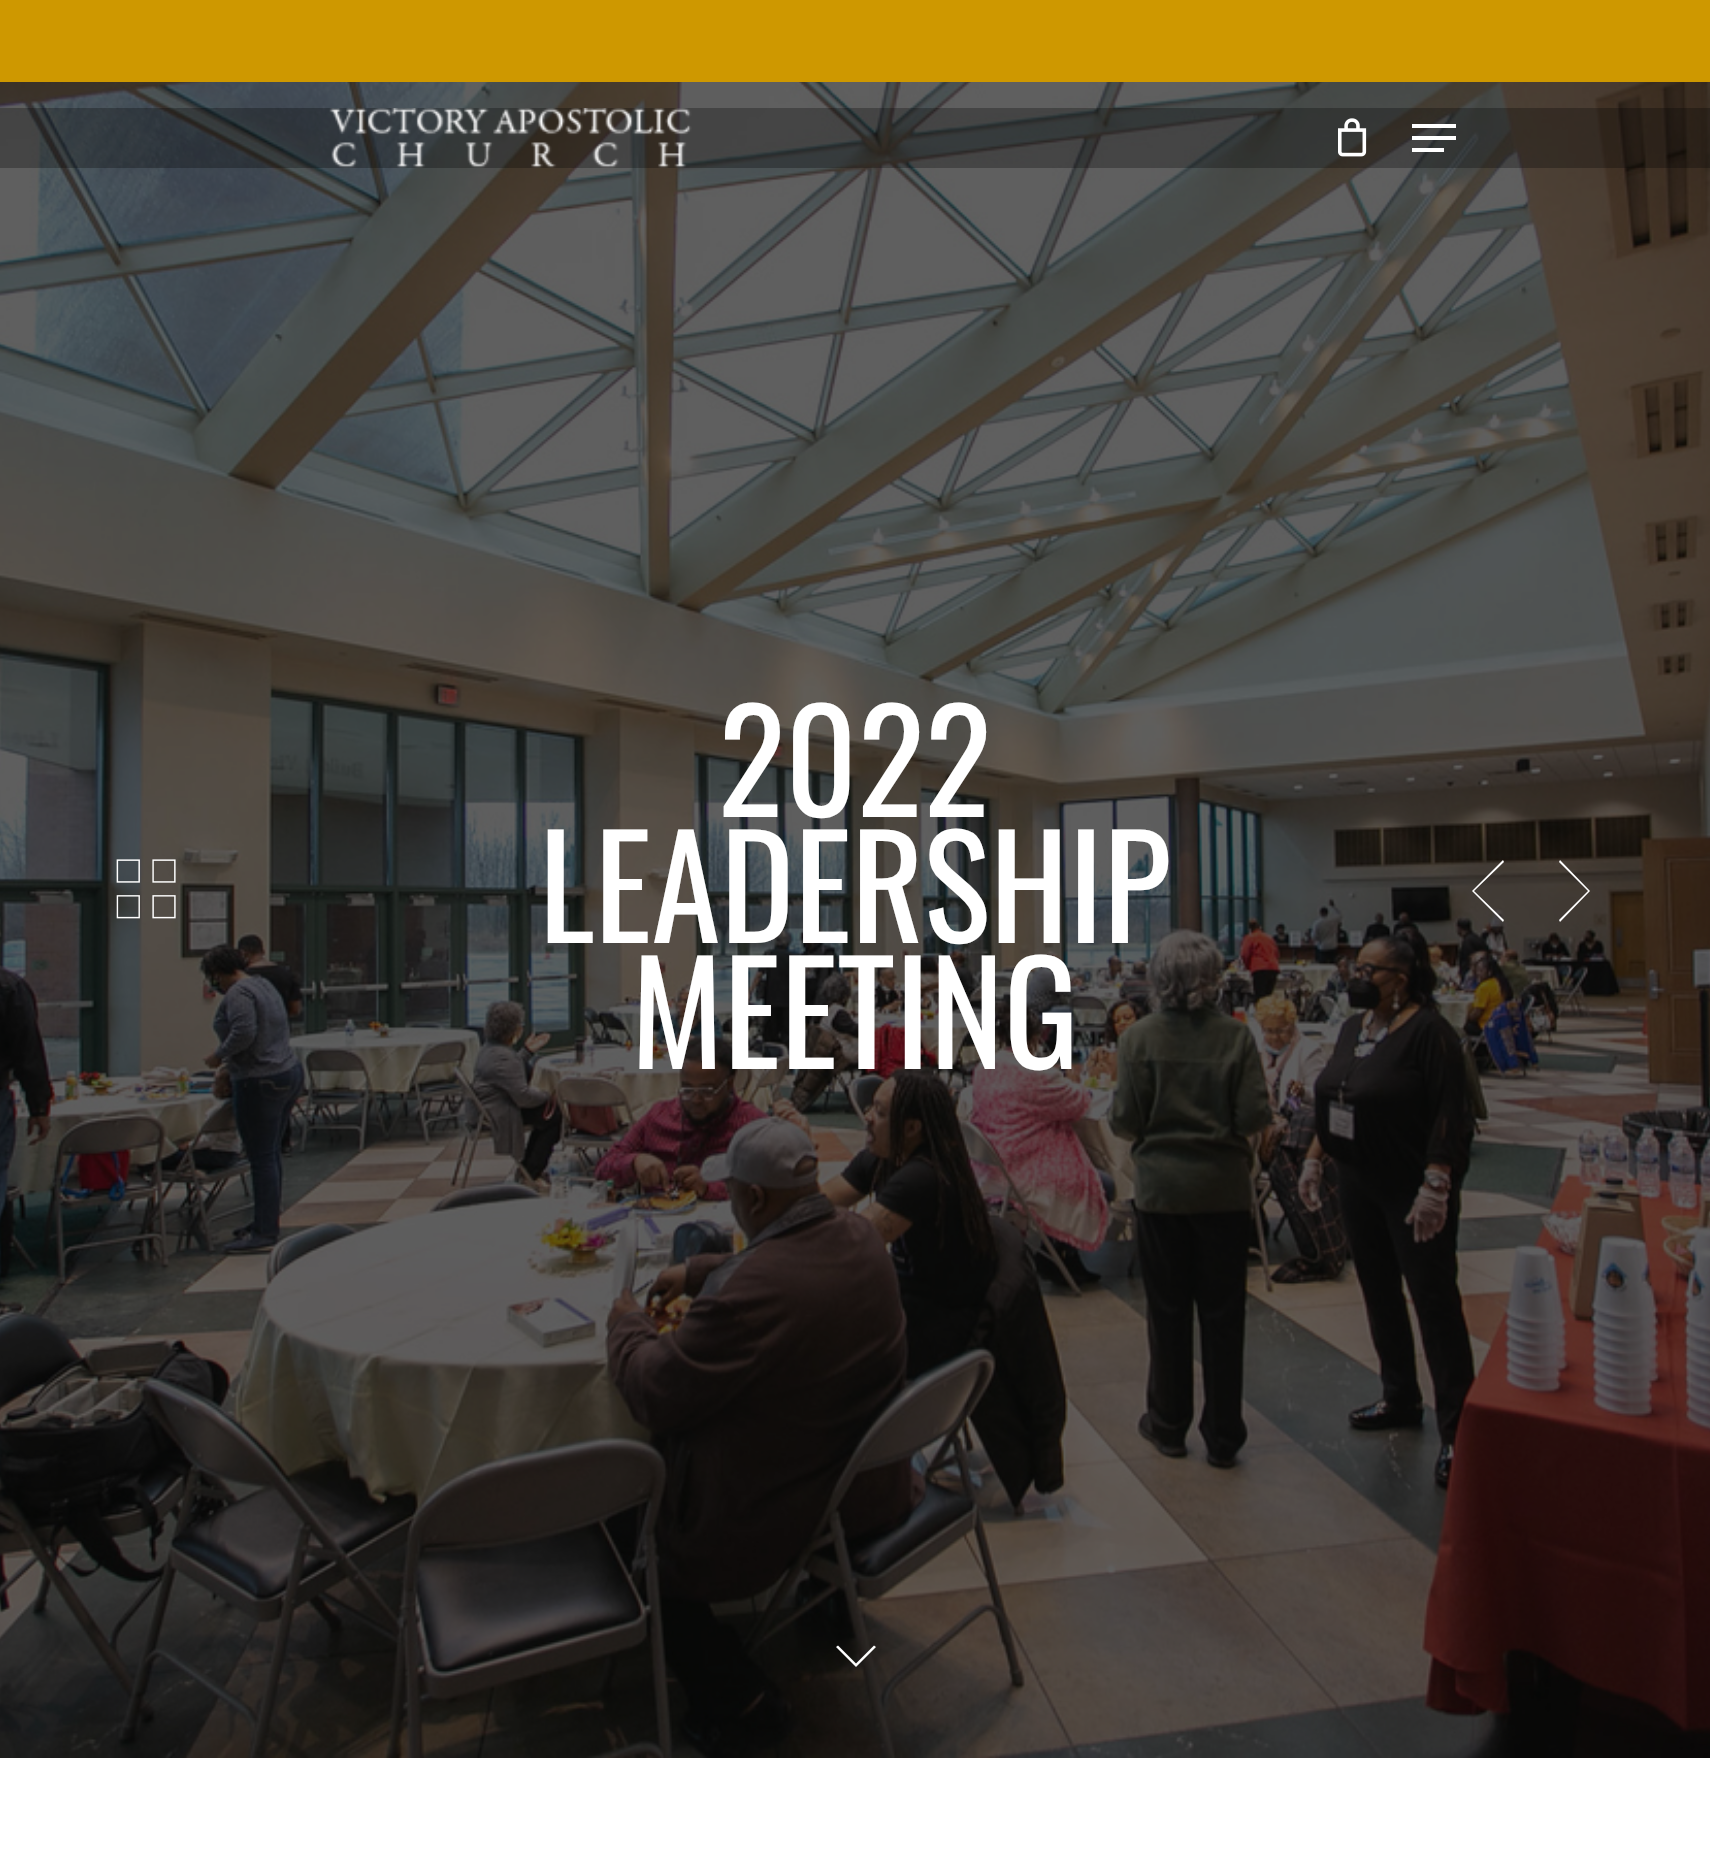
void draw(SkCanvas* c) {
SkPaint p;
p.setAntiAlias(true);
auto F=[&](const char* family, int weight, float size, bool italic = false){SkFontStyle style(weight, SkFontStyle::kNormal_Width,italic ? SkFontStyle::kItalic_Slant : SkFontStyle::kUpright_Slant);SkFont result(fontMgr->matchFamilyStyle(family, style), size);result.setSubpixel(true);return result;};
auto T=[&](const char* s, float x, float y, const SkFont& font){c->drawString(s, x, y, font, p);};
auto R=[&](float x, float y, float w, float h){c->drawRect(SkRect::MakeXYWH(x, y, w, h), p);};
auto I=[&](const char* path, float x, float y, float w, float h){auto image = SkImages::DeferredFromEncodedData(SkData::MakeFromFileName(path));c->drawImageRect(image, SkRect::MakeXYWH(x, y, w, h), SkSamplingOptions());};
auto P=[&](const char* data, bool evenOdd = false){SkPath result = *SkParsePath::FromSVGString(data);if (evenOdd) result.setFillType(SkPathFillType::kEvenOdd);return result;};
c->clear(0xffffffff);
p.setColor(0xffce9800);
R(0,0,1710,82);
I("3.png",0,82,1710,1676);
p.setColor(0x47000000);
R(0,108,1710,60);
I("1.png",329,108,363,60);
I("2.png",1338,118,29,39);
p.setColor(0xffffffff);
R(1412,124,44,4);
R(1412,148,32,4);
R(1412,136,44,4);
auto f1 = F("Oswald",400,140);
T("2022",718,817,f1);
T("LEADERSHIP",539,943,f1);
T("MEETING",631,1069,f1);
I("4.png",116,859,60,60);
c->drawPath(P("M1504 862l-1-2l-31 31l31 31l1-2l-30-29z"),p);
c->drawPath(P("M1559 862l1-2l30 31l-30 31l-1-2l29-29z"),p);
c->drawPath(P("M874 1645.5l2 1.5l-20 20l-20-20l2-1.5l18 18z"),p);
}
